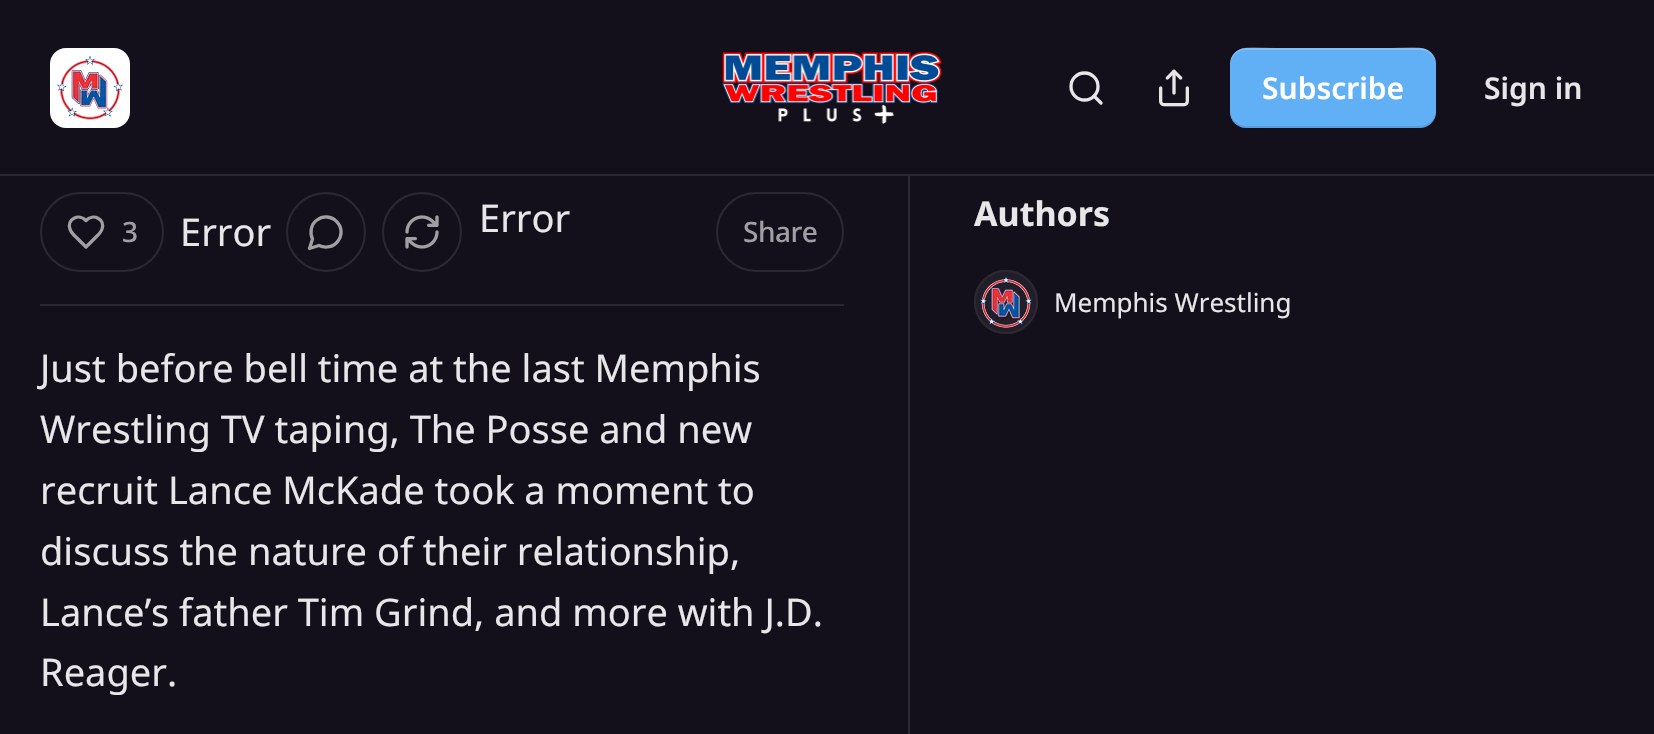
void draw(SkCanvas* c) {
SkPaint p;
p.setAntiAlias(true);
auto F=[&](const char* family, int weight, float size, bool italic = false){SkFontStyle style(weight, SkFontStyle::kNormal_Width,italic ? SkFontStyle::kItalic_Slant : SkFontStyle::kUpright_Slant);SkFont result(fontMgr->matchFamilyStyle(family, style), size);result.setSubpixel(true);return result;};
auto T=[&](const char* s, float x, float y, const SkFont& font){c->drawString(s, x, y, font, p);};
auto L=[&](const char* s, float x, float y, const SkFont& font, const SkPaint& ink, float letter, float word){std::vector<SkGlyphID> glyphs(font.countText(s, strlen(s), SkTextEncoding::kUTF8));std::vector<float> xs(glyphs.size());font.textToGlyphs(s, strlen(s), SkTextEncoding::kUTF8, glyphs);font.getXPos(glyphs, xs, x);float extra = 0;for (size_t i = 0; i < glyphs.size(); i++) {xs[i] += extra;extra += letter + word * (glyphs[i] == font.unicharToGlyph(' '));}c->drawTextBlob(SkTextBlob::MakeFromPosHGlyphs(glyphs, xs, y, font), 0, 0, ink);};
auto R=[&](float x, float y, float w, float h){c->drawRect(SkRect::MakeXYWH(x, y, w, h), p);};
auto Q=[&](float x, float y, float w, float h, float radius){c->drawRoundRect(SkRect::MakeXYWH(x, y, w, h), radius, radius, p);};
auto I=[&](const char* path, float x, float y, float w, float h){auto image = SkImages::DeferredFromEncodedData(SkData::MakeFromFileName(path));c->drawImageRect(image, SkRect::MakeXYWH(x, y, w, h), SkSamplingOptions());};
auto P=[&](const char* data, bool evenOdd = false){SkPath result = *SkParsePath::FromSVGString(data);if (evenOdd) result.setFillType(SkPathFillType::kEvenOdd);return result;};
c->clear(0xff14101b);
p.setColor(0xff2b2832);
R(0,174,1654,2);
p.setColor(0xffffffff);
Q(50,48,80,80,16);
I("1.png",57,56,66,64);
I("2.png",722,52,220,72);
p.setStroke(true);
p.setStrokeWidth(3.3);
p.setColor(0xffe7e6e9);
c->drawCircle(1084.5,86.5,13.5,p);
p.setStrokeCap(SkPaint::kRound_Cap);
p.setStrokeJoin(SkPaint::kRound_Join);
c->drawPath(P("M1101 103l-7-7"),p);
I("3.png",1159,69,30,38);
p.setStroke(false);
p.setColor(0xff61aff4);
Q(1230,48,206,80,16);
p.setColor(0x1a000000);
c->drawPath(P("M1230 110c0 25 29 18 45 18h116c16 0 45 7 45-18c0 9-7 16-16 16h-174c-9 0-16-7-16-16z"),p);
p.setColor(0x33ffffff);
c->drawPath(P("M1246 50h174c9 0 16 7 16 16c0-25-29-18-45-18h-116c-16 0-45-7-45 18c0-9 7-16 16-16z"),p);
auto f1 = F("Noto Sans",600,30);
p.setColor(0xffffffff);
T("Subscribe",1262,99,f1);
p.setColor(0xffe7e6e9);
T("Sign in",1484,99,f1);
p.setColor(0xff2b2832);
R(40,304,804,2);
p.setStroke(true);
p.setStrokeWidth(2);
p.setStrokeCap(SkPaint::kButt_Cap);
p.setStrokeJoin(SkPaint::kMiter_Join);
c->drawRoundRect(SkRect::MakeXYWH(41,193,122,78),39,39,p);
p.setStrokeWidth(3.3);
p.setStrokeCap(SkPaint::kRound_Cap);
p.setStrokeJoin(SkPaint::kRound_Join);
p.setColor(0xffa19fa4);
c->drawPath(P("M97.5 235.5c2-2 4-4 4.5-6.5c3.5-10-9-16-16-8.5c-7-7.5-19.5-1.5-16 8.5c1 4 5 7 8 10l8 8z"),p);
auto f2 = F("Noto Sans",500,28);
p.setStroke(false);
L("3",122,242,f2,p,-.5,0);
auto f3 = F("Noto Sans",400,38);
p.setColor(0xffe7e6e9);
T("Error",180,246,f3);
p.setStroke(true);
p.setStrokeWidth(2);
p.setStrokeCap(SkPaint::kButt_Cap);
p.setStrokeJoin(SkPaint::kMiter_Join);
p.setColor(0xff2b2832);
c->drawCircle(326,232,39,p);
p.setStrokeWidth(3.3);
p.setStrokeCap(SkPaint::kRound_Cap);
p.setStrokeJoin(SkPaint::kRound_Join);
p.setColor(0xffa19fa4);
c->drawPath(P("M319 245.5c6.5 3 15 1.5 19-4.5c4.5-6 4-14.5-1.5-19.5c-5-5.5-13.5-6-19.5-1.5c-6 4-7.5 12.5-4.5 19l-3 9.5z"),p);
p.setStrokeWidth(2);
p.setStrokeCap(SkPaint::kButt_Cap);
p.setStrokeJoin(SkPaint::kMiter_Join);
p.setColor(0xff2b2832);
c->drawCircle(422,232,39,p);
I("4.png",405,215,34,34);
p.setStroke(false);
p.setColor(0xffe7e6e9);
T("Error",479,232,f3);
p.setStroke(true);
p.setColor(0xff2b2832);
c->drawRoundRect(SkRect::MakeXYWH(717,193,126,78),39,39,p);
p.setStroke(false);
p.setColor(0xffa19fa4);
L("Share",743,242,f2,p,-.5,0);
p.setColor(0xffe7e6e9);
T("Just before bell time at the last Memphis",40,382,f3);
T("Wrestling TV taping, The Posse and new",40,443,f3);
T("recruit Lance McKade took a moment to",40,504,f3);
T("discuss the nature of their relationship,",40,565,f3);
T("Lance’s father Tim Grind, and more with J.D.",40,626,f3);
T("Reager.",40,686,f3);
p.setColor(0xff2b2832);
R(908,176,2,558);
auto f4 = F("Noto Sans",700,34);
p.setColor(0xffe7e6e9);
T("Authors",974,226,f4);
p.setStroke(true);
p.setColor(0xff2b2832);
c->drawCircle(1006,302,31,p);
p.setStroke(false);
p.setColor(0xff221e29);
c->drawCircle(1006,302,32,p);
I("5.png",979,276,54,52);
p.setStroke(true);
p.setColor(0xff2b2832);
c->drawCircle(1006,302,31,p);
auto f5 = F("Noto Sans",400,26);
p.setStroke(false);
p.setColor(0xffe7e6e9);
T("Memphis Wrestling",1054,312,f5);
}
